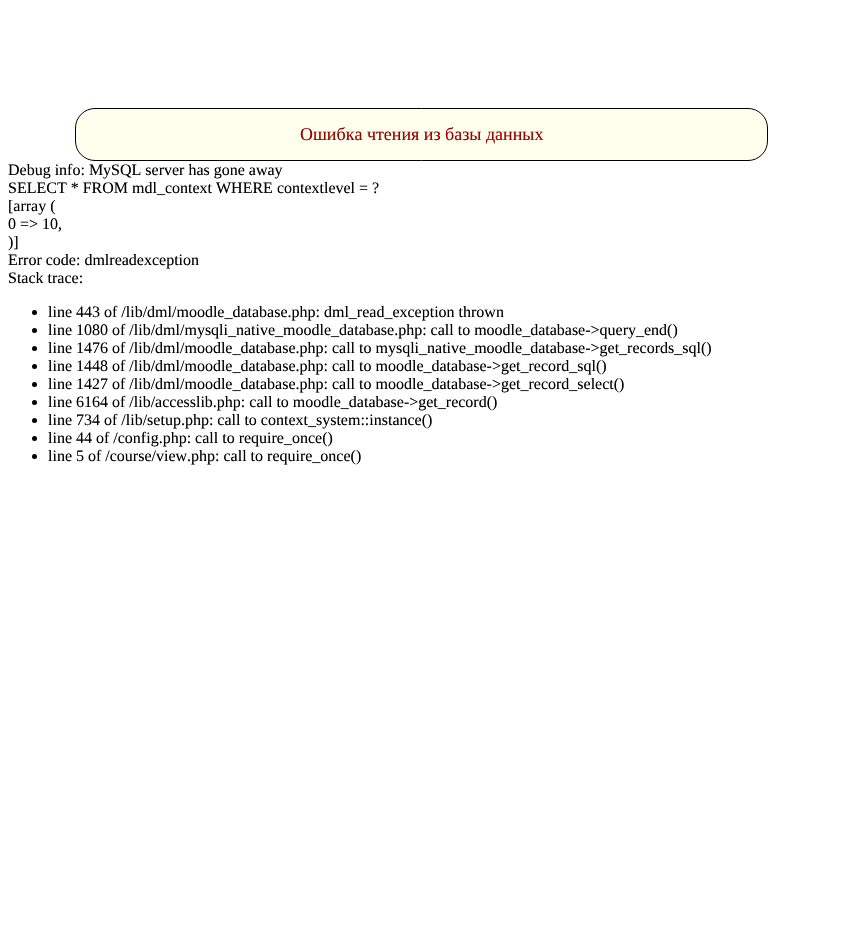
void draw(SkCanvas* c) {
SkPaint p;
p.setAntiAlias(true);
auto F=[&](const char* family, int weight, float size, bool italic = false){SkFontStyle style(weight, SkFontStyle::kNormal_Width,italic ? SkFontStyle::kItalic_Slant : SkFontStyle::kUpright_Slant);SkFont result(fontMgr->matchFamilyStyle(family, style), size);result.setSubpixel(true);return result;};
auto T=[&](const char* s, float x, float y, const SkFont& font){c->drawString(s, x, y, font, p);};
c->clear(0xffffffff);
p.setColor(0xffffffee);
c->drawRoundRect(SkRect::MakeXYWH(75.5,108.5,692,52),19.5,19.5,p);
p.setStroke(true);
p.setStrokeWidth(1);
p.setColor(0xff000000);
c->drawRoundRect(SkRect::MakeXYWH(75.5,108.5,692,52),19.5,19.5,p);
auto f1 = F("Liberation Serif",400,18);
p.setStroke(false);
p.setColor(0xff990000);
T("Ошибка чтения из базы данных",300,140,f1);
auto f2 = F("Liberation Serif",400,16);
p.setColor(0xff000000);
T("Debug info: MySQL server has gone away",8,175,f2);
T("SELECT * FROM mdl_context WHERE contextlevel = ?",8,193,f2);
T("[array (",8,211,f2);
T("0 => 10,",8,229,f2);
T(")]",8,247,f2);
T("Error code: dmlreadexception",8,265,f2);
T("Stack trace:",8,283,f2);
c->drawCircle(34.5,312.5,2.5,p);
T("line 443 of /lib/dml/moodle_database.php: dml_read_exception thrown",48,317,f2);
c->drawCircle(34.5,330.5,2.5,p);
T("line 1080 of /lib/dml/mysqli_native_moodle_database.php: call to moodle_database->query_end()",48,335,f2);
c->drawCircle(34.5,348.5,2.5,p);
T("line 1476 of /lib/dml/moodle_database.php: call to mysqli_native_moodle_database->get_records_sql()",48,353,f2);
c->drawCircle(34.5,366.5,2.5,p);
T("line 1448 of /lib/dml/moodle_database.php: call to moodle_database->get_record_sql()",48,371,f2);
c->drawCircle(34.5,384.5,2.5,p);
T("line 1427 of /lib/dml/moodle_database.php: call to moodle_database->get_record_select()",48,389,f2);
c->drawCircle(34.5,402.5,2.5,p);
T("line 6164 of /lib/accesslib.php: call to moodle_database->get_record()",48,407,f2);
c->drawCircle(34.5,420.5,2.5,p);
T("line 734 of /lib/setup.php: call to context_system::instance()",48,425,f2);
c->drawCircle(34.5,438.5,2.5,p);
T("line 44 of /config.php: call to require_once()",48,443,f2);
c->drawCircle(34.5,456.5,2.5,p);
T("line 5 of /course/view.php: call to require_once()",48,461,f2);
}
